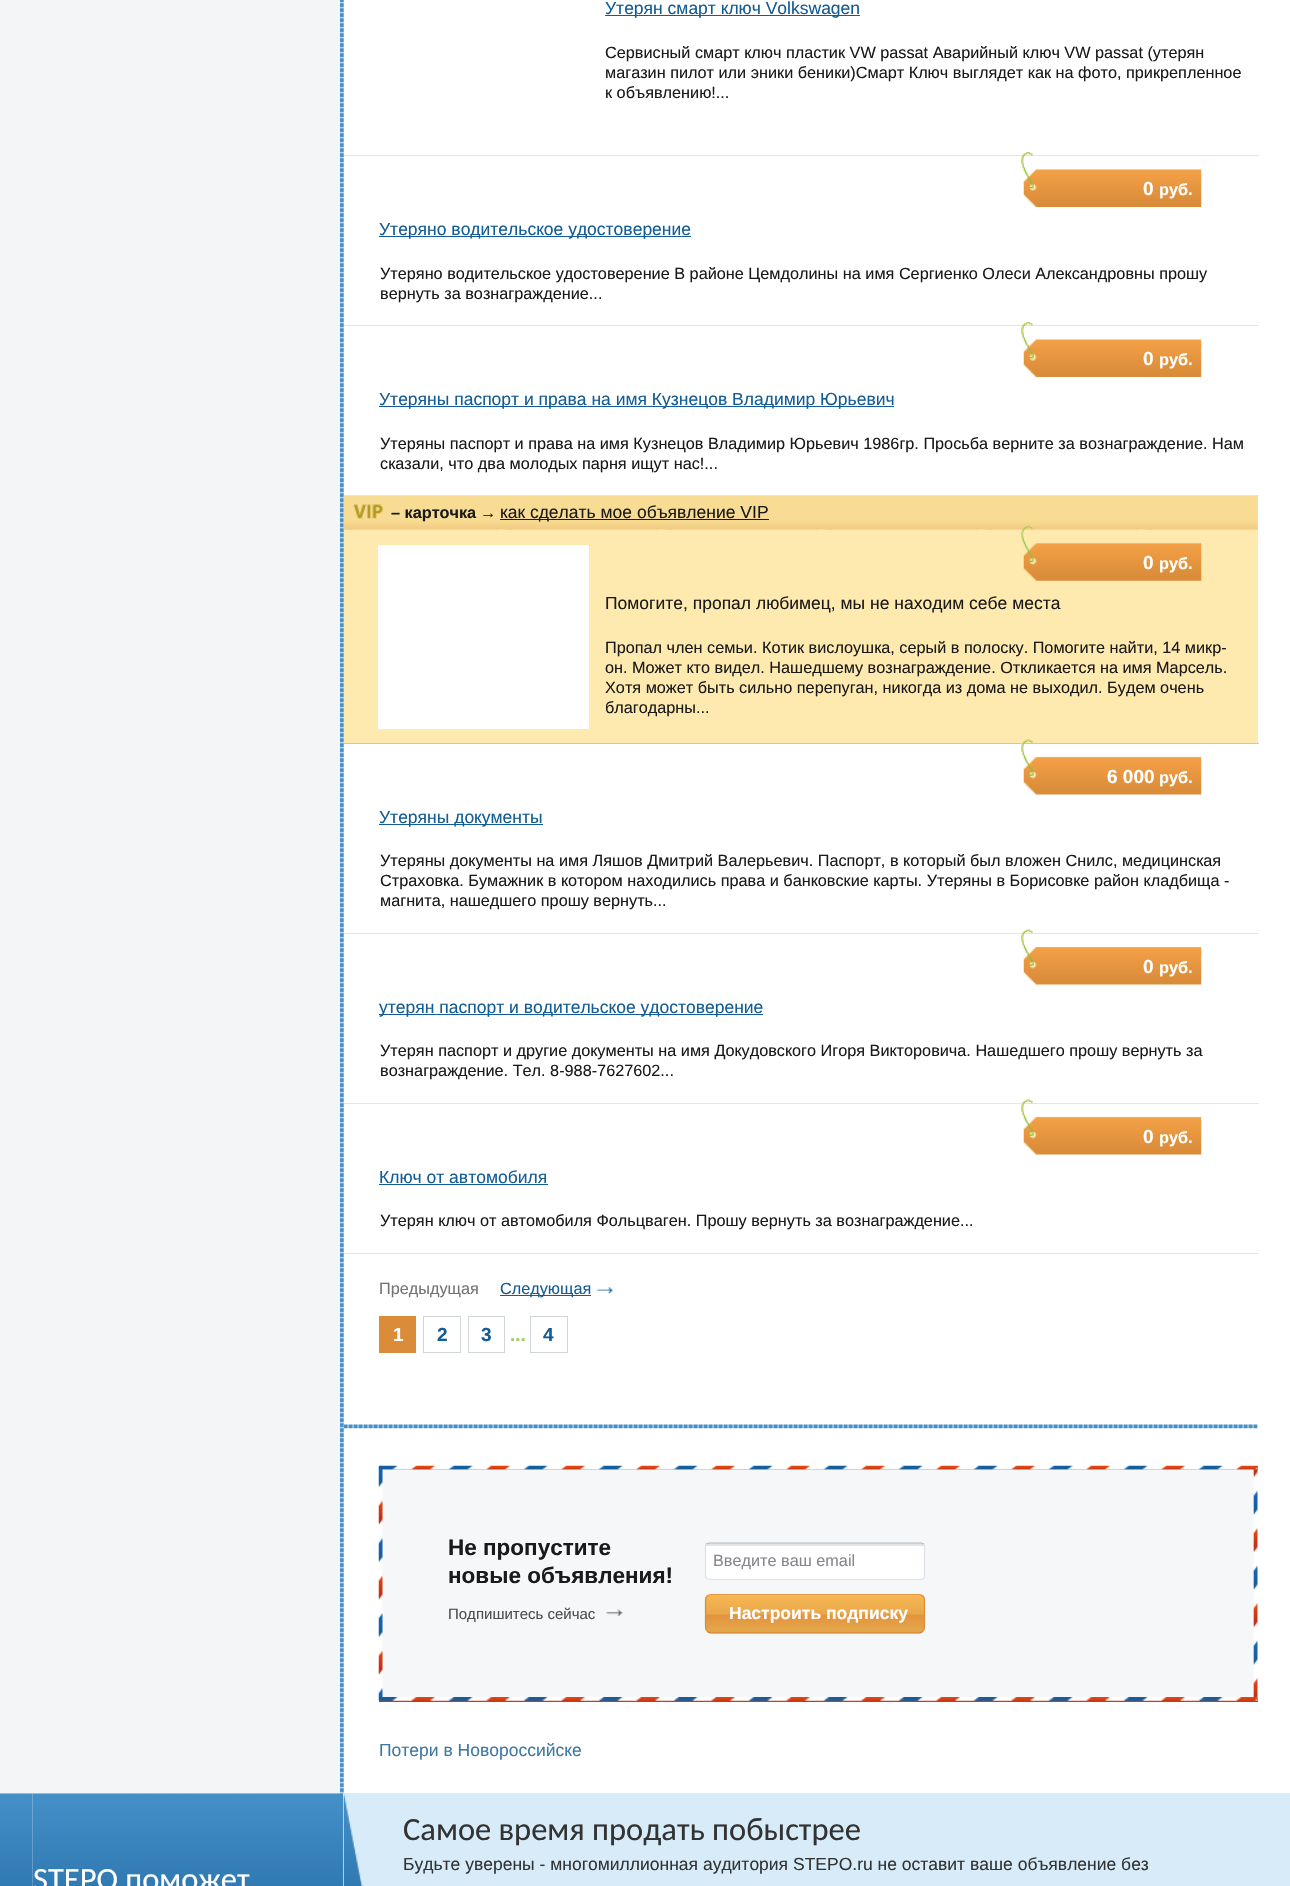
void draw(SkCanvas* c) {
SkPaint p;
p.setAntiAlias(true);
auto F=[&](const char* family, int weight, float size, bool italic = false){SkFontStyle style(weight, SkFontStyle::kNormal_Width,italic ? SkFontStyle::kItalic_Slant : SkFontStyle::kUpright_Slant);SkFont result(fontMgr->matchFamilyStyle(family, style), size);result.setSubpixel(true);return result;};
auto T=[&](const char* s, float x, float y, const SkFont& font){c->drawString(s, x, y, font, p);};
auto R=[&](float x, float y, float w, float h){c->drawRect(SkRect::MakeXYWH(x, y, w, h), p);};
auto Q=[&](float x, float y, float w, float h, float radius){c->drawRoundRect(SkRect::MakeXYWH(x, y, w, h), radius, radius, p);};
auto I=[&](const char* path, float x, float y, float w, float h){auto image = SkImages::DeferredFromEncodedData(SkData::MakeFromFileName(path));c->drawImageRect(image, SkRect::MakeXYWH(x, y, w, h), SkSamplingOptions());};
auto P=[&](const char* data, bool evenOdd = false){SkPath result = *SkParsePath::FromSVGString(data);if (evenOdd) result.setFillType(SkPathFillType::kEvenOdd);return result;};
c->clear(0xffffffff);
p.setColor(0xfff3f5f7);
R(0,0,33,1886);
R(33,0,307,1794);
I("1.png",340,0,4,1794);
p.setColor(0xffe5e5e5);
R(344,155,915,1);
p.setColor(0xff135c94);
R(605,15,255,1);
auto f1 = F("Liberation Sans",400,17.5);
T("Утерян смарт ключ Volkswagen",605,14,f1);
auto f2 = F("Liberation Sans",400,16.25);
p.setColor(0xff1a1a1a);
T("Сервисный смарт ключ пластик VW passat Аварийный ключ VW passat (утерян",605,58,f2);
T("магазин пилот или эники беники)Смарт Ключ выглядет как на фото, прикрепленное",605,78,f2);
T("к объявлению!...",605,98,f2);
p.setColor(0xffe5e5e5);
R(344,325,915,1);
I("2.png",1021,152,181,55);
auto f3 = F("Liberation Sans",700,19);
p.setColor(0xffffffff);
T("0",1143,195,f3);
auto f4 = F("Liberation Sans",700,16.25);
T("руб.",1159,195,f4);
p.setColor(0xff135c94);
R(379,236,312,1);
T("Утеряно водительское удостоверение",379,235,f1);
p.setColor(0xff1a1a1a);
T("Утеряно водительское удостоверение В районе Цемдолины на имя Сергиенко Олеси Александровны прошу",380,279,f2);
T("вернуть за вознаграждение...",380,299,f2);
p.setColor(0xfff8dc94);
R(344,496,914,34);
I("3.png",343,495,915,35);
p.setColor(0xffe5e5e5);
R(344,495,915,1);
I("2.png",1021,322,181,55);
p.setColor(0xffffffff);
T("0",1143,365,f3);
T("руб.",1159,365,f4);
p.setColor(0xff135c94);
R(379,406,515,1);
T("Утеряны паспорт и права на имя Кузнецов Владимир Юрьевич",379,405,f1);
p.setColor(0xff1a1a1a);
T("Утеряны паспорт и права на имя Кузнецов Владимир Юрьевич 1986гр. Просьба верните за вознаграждение. Нам",380,449,f2);
T("сказали, что два молодых парня ищут нас!...",380,469,f2);
I("4.png",353,504,30,15);
T("– карточка",391,518,f4);
T("→",480,518,f2);
R(500,519,269,1);
T("как сделать мое объявление VIP",500,518,f1);
p.setColor(0xfffee9af);
R(344,530,914,213);
p.setColor(0xffedc66a);
R(344,743,915,1);
p.setColor(0xffffffff);
R(378,545,211,184);
I("5.png",1021,525,181,56);
T("0",1143,569,f3);
T("руб.",1159,569,f4);
p.setColor(0xff1a1a1a);
T("Помогите, пропал любимец, мы не находим себе места",605,609,f1);
T("Пропал член семьи. Котик вислоушка, серый в полоску. Помогите найти, 14 микр-",605,653,f2);
T("он. Может кто видел. Нашедшему вознаграждение. Откликается на имя Марсель.",605,673,f2);
T("Хотя может быть сильно перепуган, никогда из дома не выходил. Будем очень",605,693,f2);
T("благодарны...",605,713,f2);
p.setColor(0xffe5e5e5);
R(344,933,915,1);
I("6.png",1021,739,181,56);
p.setColor(0xffffffff);
T("6 000",1107,783,f3);
T("руб.",1159,783,f4);
p.setColor(0xff135c94);
R(379,824,164,1);
T("Утеряны документы",379,823,f1);
p.setColor(0xff1a1a1a);
T("Утеряны документы на имя Ляшов Дмитрий Валерьевич. Паспорт, в который был вложен Снилс, медицинская",380,866,f2);
T("Страховка. Бумажник в котором находились права и банковские карты. Утеряны в Борисовке район кладбища -",380,886,f2);
T("магнита, нашедшего прошу вернуть...",380,906,f2);
p.setColor(0xffe5e5e5);
R(344,1103,915,1);
I("7.png",1021,929,181,56);
p.setColor(0xffffffff);
T("0",1143,973,f3);
T("руб.",1159,973,f4);
p.setColor(0xff135c94);
R(379,1014,384,1);
T("утерян паспорт и водительское удостоверение",379,1013,f1);
p.setColor(0xff1a1a1a);
T("Утерян паспорт и другие документы на имя Докудовского Игоря Викторовича. Нашедшего прошу вернуть за",380,1056,f2);
T("вознаграждение. Тел. 8-988-7627602...",380,1076,f2);
p.setColor(0xffe5e5e5);
R(344,1253,915,1);
I("7.png",1021,1099,181,56);
p.setColor(0xffffffff);
T("0",1143,1143,f3);
T("руб.",1159,1143,f4);
p.setColor(0xff135c94);
T("Ключ от автомобиля",379,1183,f1);
R(379,1184,169,1);
p.setColor(0xff1a1a1a);
T("Утерян ключ от автомобиля Фольцваген. Прошу вернуть за вознаграждение...",380,1226,f2);
p.setColor(0xff737375);
T("Предыдущая",379,1294,f2);
I("8.png",597,1286,16,8);
p.setColor(0xff135c94);
R(500,1295,91,1);
T("Следующая",500,1294,f2);
p.setColor(0xffda8c39);
R(379,1316,37,37);
p.setColor(0xffffffff);
T("1",393,1341,f3);
p.setStroke(true);
p.setStrokeWidth(1);
p.setColor(0xffd0d5da);
c->drawRect(SkRect::MakeXYWH(423.5,1316.5,37,36),p);
p.setStroke(false);
p.setColor(0xff135c94);
T("2",437,1341,f3);
p.setStroke(true);
p.setColor(0xffd0d5da);
c->drawRect(SkRect::MakeXYWH(468.5,1316.5,36,36),p);
p.setStroke(false);
p.setColor(0xff135c94);
T("3",481,1341,f3);
p.setColor(0xff9dce61);
T("...",510,1341,f3);
p.setStroke(true);
p.setColor(0xffd0d5da);
c->drawRect(SkRect::MakeXYWH(530.5,1316.5,37,36),p);
p.setStroke(false);
p.setColor(0xff135c94);
T("4",543,1341,f3);
I("9.png",343,1424,915,5);
p.setColor(0xffcf3814);
R(379,1466,879,4);
I("10.png",378,1465,880,5);
I("11.png",378,1469,880,228);
auto f5 = F("Liberation Sans",700,22.5);
p.setColor(0xff1a1a1a);
T("Не пропустите",448,1555,f5);
T("новые объявления!",448,1583,f5);
I("12.png",606,1609,17,7);
auto f6 = F("Liberation Sans",400,15);
p.setColor(0xff4d4d4d);
T("Подпишитесь сейчас",448,1619,f6);
p.setColor(0xffffffff);
Q(705,1543,220,37,4);
p.setColor(0xffe4e4e4);
R(705,1543,220,3);
p.setStroke(true);
p.setStrokeWidth(1.2);
p.setColor(0xffb8b9be);
c->drawPath(P("M706.5 1544l2.5-1h212l2.5 1"),p);
p.setColor(0xffdee1e8);
c->drawPath(P("M923.5 1544c.5 .5 1 1.5 1 2v30c0 1-.5 2-1 2.5"),p);
p.setColor(0xffdde1e8);
c->drawPath(P("M923.5 1578.5l-2.5 1h-212l-2.5-1"),p);
p.setColor(0xffdee1e8);
c->drawPath(P("M706.5 1578.5c-.5-.5-1-1.5-1-2.5v-30c0-.5 .5-1.5 1-2"),p);
p.setStroke(false);
p.setColor(0xff86868e);
T("Введите ваш email",713,1566,f2);
I("13.png",705,1594,220,40);
p.setStroke(true);
p.setColor(0xffe89943);
c->drawPath(P("M707.5 1596c1-1 2.5-1.5 3.5-1.5h208c1 0 2.5 .5 3.5 1.5"),p);
p.setColor(0xffd98d3c);
c->drawPath(P("M922.5 1596c1.5 1 2 2.5 2 4v27.5c0 1.5-.5 3-2 4"),p);
p.setColor(0xffc57e33);
c->drawPath(P("M922.5 1631.5c-1 1-2.5 1.5-3.5 1.5h-208c-1 0-2.5-.5-3.5-1.5"),p);
p.setColor(0xffd98d3c);
c->drawPath(P("M707.5 1631.5c-1.5-1-2-2.5-2-4v-27.5c0-1.5 .5-3 2-4"),p);
auto f7 = F("Liberation Sans",700,17.5);
p.setStroke(false);
p.setColor(0xffffffff);
T("Настроить подписку",729,1619,f7);
p.setColor(0xffcf3814);
R(379,1698,879,4);
I("14.png",378,1697,880,4);
p.setColor(0xff3f78a0);
T("Потери в Новороссийске",379,1756,f1);
I("15.png",340,1793,3,93);
p.setColor(0xffd7ecf8);
R(343,1793,947,93);
I("16.png",343,1793,20,93);
auto f8 = F("Carlito",400,32.5);
p.setColor(0xff333333);
T("Самое время продать побыстрее",403,1840,f8);
T("Будьте уверены - многомиллионная аудитория STEPO.ru не оставит ваше объявление без",403,1870,f1);
I("17.png",32,1793,308,93);
I("18.png",0,1793,33,93);
p.setColor(0xffffffff);
T("STEPO поможет",33,1890,f8);
}
